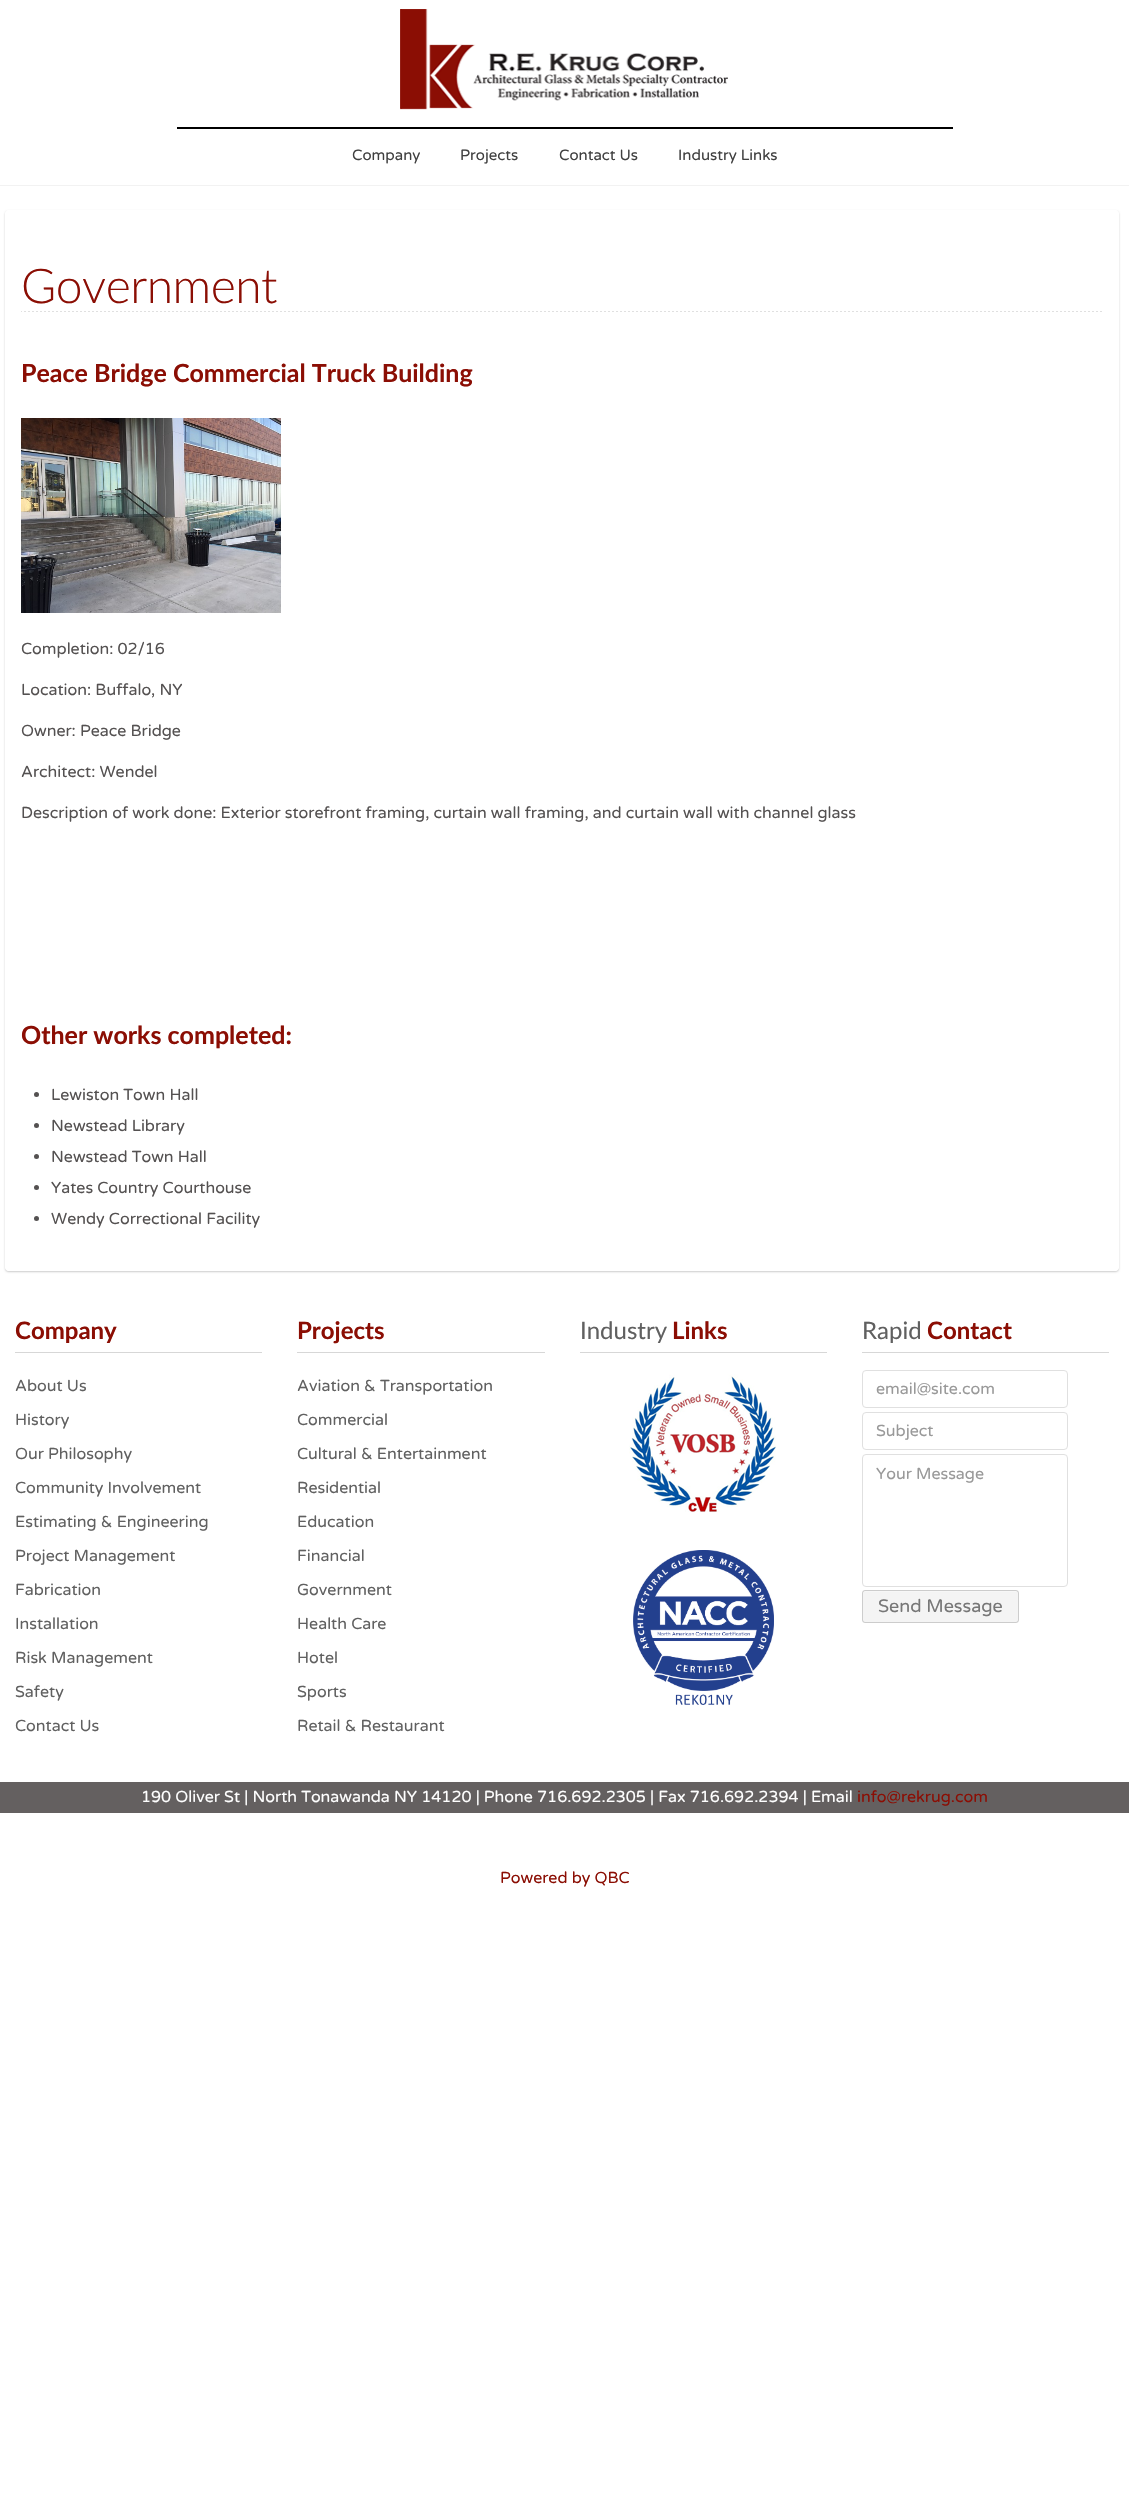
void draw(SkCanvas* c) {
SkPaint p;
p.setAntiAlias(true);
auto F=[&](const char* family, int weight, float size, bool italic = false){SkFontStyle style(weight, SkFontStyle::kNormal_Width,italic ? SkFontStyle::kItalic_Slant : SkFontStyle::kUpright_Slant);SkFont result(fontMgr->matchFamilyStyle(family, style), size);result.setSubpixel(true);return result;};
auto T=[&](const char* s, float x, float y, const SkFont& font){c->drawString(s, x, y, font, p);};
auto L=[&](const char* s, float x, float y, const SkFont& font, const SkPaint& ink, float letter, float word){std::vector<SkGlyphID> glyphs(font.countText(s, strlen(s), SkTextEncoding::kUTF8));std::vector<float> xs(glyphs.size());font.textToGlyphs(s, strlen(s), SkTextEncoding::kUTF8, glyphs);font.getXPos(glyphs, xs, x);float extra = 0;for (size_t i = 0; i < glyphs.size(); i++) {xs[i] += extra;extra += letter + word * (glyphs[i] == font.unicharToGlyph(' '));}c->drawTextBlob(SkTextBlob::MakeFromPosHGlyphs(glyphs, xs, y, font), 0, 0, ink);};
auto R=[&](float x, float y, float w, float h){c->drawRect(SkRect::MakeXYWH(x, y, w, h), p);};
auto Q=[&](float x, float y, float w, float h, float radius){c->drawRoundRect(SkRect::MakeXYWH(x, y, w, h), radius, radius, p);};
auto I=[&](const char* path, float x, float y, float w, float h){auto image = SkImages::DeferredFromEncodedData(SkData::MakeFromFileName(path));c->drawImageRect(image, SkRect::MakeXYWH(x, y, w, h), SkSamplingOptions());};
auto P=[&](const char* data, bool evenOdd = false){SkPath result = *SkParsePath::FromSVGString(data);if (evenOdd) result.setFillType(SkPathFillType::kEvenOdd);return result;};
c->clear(0xffffffff);
I("1.png",400,9,328,101);
p.setColor(0xff000000);
R(177,127,776,2);
c->save();
c->clipRect(SkRect::MakeXYWH(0,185,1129,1));
p.setColor(0x0d000000);
p.setMaskFilter(SkMaskFilter::MakeBlur(kNormal_SkBlurStyle, .5));
c->drawRect(SkRect::MakeXYWH(0,130,1129,56),p);
p.setMaskFilter(nullptr);
c->restore();
auto f1 = F("Varela Round",400,15);
p.setColor(0xff404040);
T("Company",352,160,f1);
T("Projects",460,160,f1);
T("Contact Us",559,160,f1);
T("Industry Links",678,160,f1);
c->save();
c->clipPath(P("M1 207h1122v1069h-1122zm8 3h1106c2 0 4 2 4 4v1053c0 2-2 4-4 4h-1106c-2 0-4-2-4-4v-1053c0-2 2-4 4-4z",true),true);
p.setColor(0x33000000);
p.setMaskFilter(SkMaskFilter::MakeBlur(kNormal_SkBlurStyle, 1));
c->drawRoundRect(SkRect::MakeXYWH(5,211,1114,1061),4,4,p);
p.setMaskFilter(nullptr);
c->restore();
p.setColor(0x80ffffff);
Q(5,210,1114,1061,4);
p.setStroke(true);
p.setStrokeWidth(1);
p.setColor(0xe6ffffff);
c->drawRoundRect(SkRect::MakeXYWH(5.5,210.5,1113,1060),3.5,3.5,p);
I("2.png",21,311,1081,1);
auto f2 = F("Lato",300,48);
p.setStroke(false);
p.setColor(0xff8b0e04);
L("Government",21,303,f2,p,-.5,0);
auto f3 = F("Lato",700,25);
T("Peace Bridge Commercial Truck Building",21,382,f3);
I("3.png",21,418,260,195);
auto f4 = F("Varela Round",400,16);
p.setColor(0xff545151);
T("Completion: 02/16",21,654,f4);
T("Location: Buffalo, NY",21,695,f4);
T("Owner: Peace Bridge",21,736,f4);
T("Architect: Wendel",21,777,f4);
T("Description of work done: Exterior storefront framing, curtain wall framing, and curtain wall with channel glass",21,818,f4);
p.setColor(0xff8b0e04);
T("Other works completed:",21,1044,f3);
p.setColor(0xff545151);
c->drawCircle(36.5,1094.5,2.5,p);
T("Lewiston Town Hall",51,1100,f4);
c->drawCircle(36.5,1125.5,2.5,p);
T("Newstead Library",51,1131,f4);
c->drawCircle(36.5,1156.5,2.5,p);
T("Newstead Town Hall",51,1162,f4);
c->drawCircle(36.5,1187.5,2.5,p);
T("Yates Country Courthouse",51,1193,f4);
c->drawCircle(36.5,1218.5,2.5,p);
T("Wendy Correctional Facility",51,1224,f4);
p.setColor(0xffd7d7d7);
R(15,1352,247,1);
auto f5 = F("Lato",700,24);
p.setColor(0xff8b0e04);
T("Company",15,1339,f5);
p.setColor(0xff606060);
T("About Us",15,1391,f4);
T("History",15,1425,f4);
T("Our Philosophy",15,1459,f4);
T("Community Involvement",15,1493,f4);
T("Estimating & Engineering",15,1527,f4);
T("Project Management",15,1561,f4);
T("Fabrication",15,1595,f4);
T("Installation",15,1629,f4);
T("Risk Management",15,1663,f4);
T("Safety",15,1697,f4);
T("Contact Us",15,1731,f4);
p.setColor(0xffd7d7d7);
R(297,1352,248,1);
p.setColor(0xff8b0e04);
T("Projects",297,1339,f5);
p.setColor(0xff606060);
T("Aviation & Transportation",297,1391,f4);
T("Commercial",297,1425,f4);
T("Cultural & Entertainment",297,1459,f4);
T("Residential",297,1493,f4);
T("Education",297,1527,f4);
T("Financial",297,1561,f4);
T("Government",297,1595,f4);
T("Health Care",297,1629,f4);
T("Hotel",297,1663,f4);
T("Sports",297,1697,f4);
T("Retail & Restaurant",297,1731,f4);
p.setColor(0xffd7d7d7);
R(580,1352,247,1);
auto f6 = F("Lato",400,24);
p.setColor(0xff606060);
T("Industry",580,1339,f6);
p.setColor(0xff8b0e04);
T("Links",672,1339,f5);
I("4.png",629,1374,147,138);
I("5.png",633,1550,141,155);
p.setColor(0xffd7d7d7);
R(862,1352,247,1);
p.setColor(0xff606060);
T("Rapid",862,1339,f6);
p.setColor(0xff8b0e04);
T("Contact",927,1339,f5);
p.setStroke(true);
p.setColor(0xffe0e0e0);
c->drawRoundRect(SkRect::MakeXYWH(862.5,1370.5,205,37),3.5,3.5,p);
p.setStroke(false);
p.setColor(0xff999999);
T("email@site.com",876,1394,f4);
p.setStroke(true);
p.setColor(0xffe0e0e0);
c->drawRoundRect(SkRect::MakeXYWH(862.5,1412.5,205,37),3.5,3.5,p);
p.setStroke(false);
p.setColor(0xff999999);
T("Subject",876,1436,f4);
p.setStroke(true);
p.setColor(0xffe0e0e0);
c->drawRoundRect(SkRect::MakeXYWH(862.5,1454.5,205,132),3.5,3.5,p);
p.setStroke(false);
p.setColor(0xff999999);
T("Your Message",876,1479,f4);
p.setColor(0xfff4f4f4);
Q(862,1590,157,33,3);
p.setColor(0xfff7f7f7);
c->drawPath(P("M865 1592h151c1 0 2 1 2 2c0-1 0-3-2-3h-152c-1 1-1 2-1 3c0-1 1-2 2-2z"),p);
p.setStroke(true);
p.setColor(0x29000000);
c->drawRoundRect(SkRect::MakeXYWH(862.5,1590.5,156,32),2.5,2.5,p);
auto f7 = F("Varela Round",400,18);
p.setStroke(false);
p.setColor(0xff777777);
T("Send Message",878,1612,f7);
p.setColor(0xff646060);
R(0,1782,1129,31);
p.setColor(0xffffffff);
T("190 Oliver St | North Tonawanda NY 14120 | Phone 716.692.2305 | Fax 716.692.2394 | Email",141,1802,f4);
p.setColor(0xff8b0e04);
T("info@rekrug.com",857,1802,f4);
T("Powered by QBC",500,1883,f4);
}
